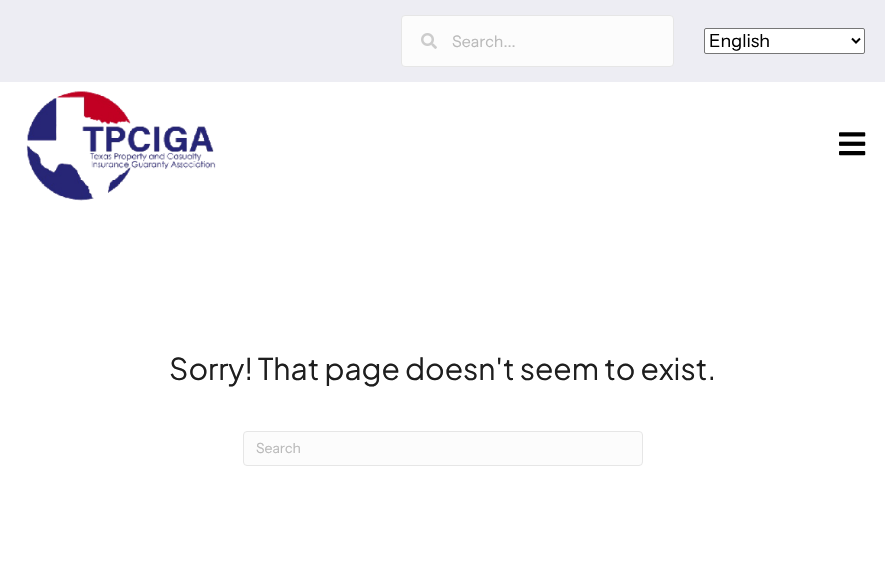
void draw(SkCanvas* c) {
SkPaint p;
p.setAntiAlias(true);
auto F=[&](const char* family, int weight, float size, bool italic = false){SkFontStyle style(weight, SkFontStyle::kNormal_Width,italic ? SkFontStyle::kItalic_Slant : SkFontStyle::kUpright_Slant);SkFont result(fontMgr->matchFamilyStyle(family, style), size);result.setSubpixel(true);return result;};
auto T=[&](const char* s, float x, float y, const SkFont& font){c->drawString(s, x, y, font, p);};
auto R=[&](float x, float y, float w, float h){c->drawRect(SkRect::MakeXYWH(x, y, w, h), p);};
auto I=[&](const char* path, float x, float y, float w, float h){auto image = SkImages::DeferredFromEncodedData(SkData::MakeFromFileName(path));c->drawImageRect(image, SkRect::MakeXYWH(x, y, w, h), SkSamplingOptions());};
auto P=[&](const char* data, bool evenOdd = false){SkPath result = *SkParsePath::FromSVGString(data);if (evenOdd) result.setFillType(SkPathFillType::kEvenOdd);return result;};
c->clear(0xffffffff);
p.setColor(0xffededf3);
R(0,0,885,82);
p.setColor(0xfffcfcfc);
c->drawRoundRect(SkRect::MakeXYWH(401.5,15.5,272,51),3.5,3.5,p);
p.setStroke(true);
p.setStrokeWidth(1);
p.setColor(0xffe6e6e6);
c->drawRoundRect(SkRect::MakeXYWH(401.5,15.5,272,51),3.5,3.5,p);
I("1.png",421,33,16,16);
auto f1 = F("Instrument Sans",400,16);
p.setStroke(false);
p.setColor(0xffbababa);
T("Search...",452,47,f1);
p.setColor(0xffffffff);
c->drawRoundRect(SkRect::MakeXYWH(704.5,28.5,160,25),1.5,1.5,p);
p.setStroke(true);
p.setColor(0xff767676);
c->drawRoundRect(SkRect::MakeXYWH(704.5,28.5,160,25),1.5,1.5,p);
p.setStrokeWidth(2);
p.setColor(0xff000000);
c->drawPath(P("M852 38.5l4 4l4-4"),p);
auto f2 = F("Instrument Sans",400,18);
p.setStroke(false);
T("English",709,47,f2);
I("2.png",26,91,190,110);
I("3.png",839,132,27,24);
auto f3 = F("Plus Jakarta Sans",400,30);
p.setColor(0xff1e1e1e);
T("Sorry! That page doesn't seem to exist.",169,380,f3);
p.setColor(0xfffcfcfc);
c->drawRoundRect(SkRect::MakeXYWH(243.5,431.5,399,34),3.5,3.5,p);
p.setStroke(true);
p.setStrokeWidth(1);
p.setColor(0xffe6e6e6);
c->drawRoundRect(SkRect::MakeXYWH(243.5,431.5,399,34),3.5,3.5,p);
auto f4 = F("Instrument Sans",400,14);
p.setStroke(false);
p.setColor(0xffbababa);
T("Search",256,453,f4);
}
